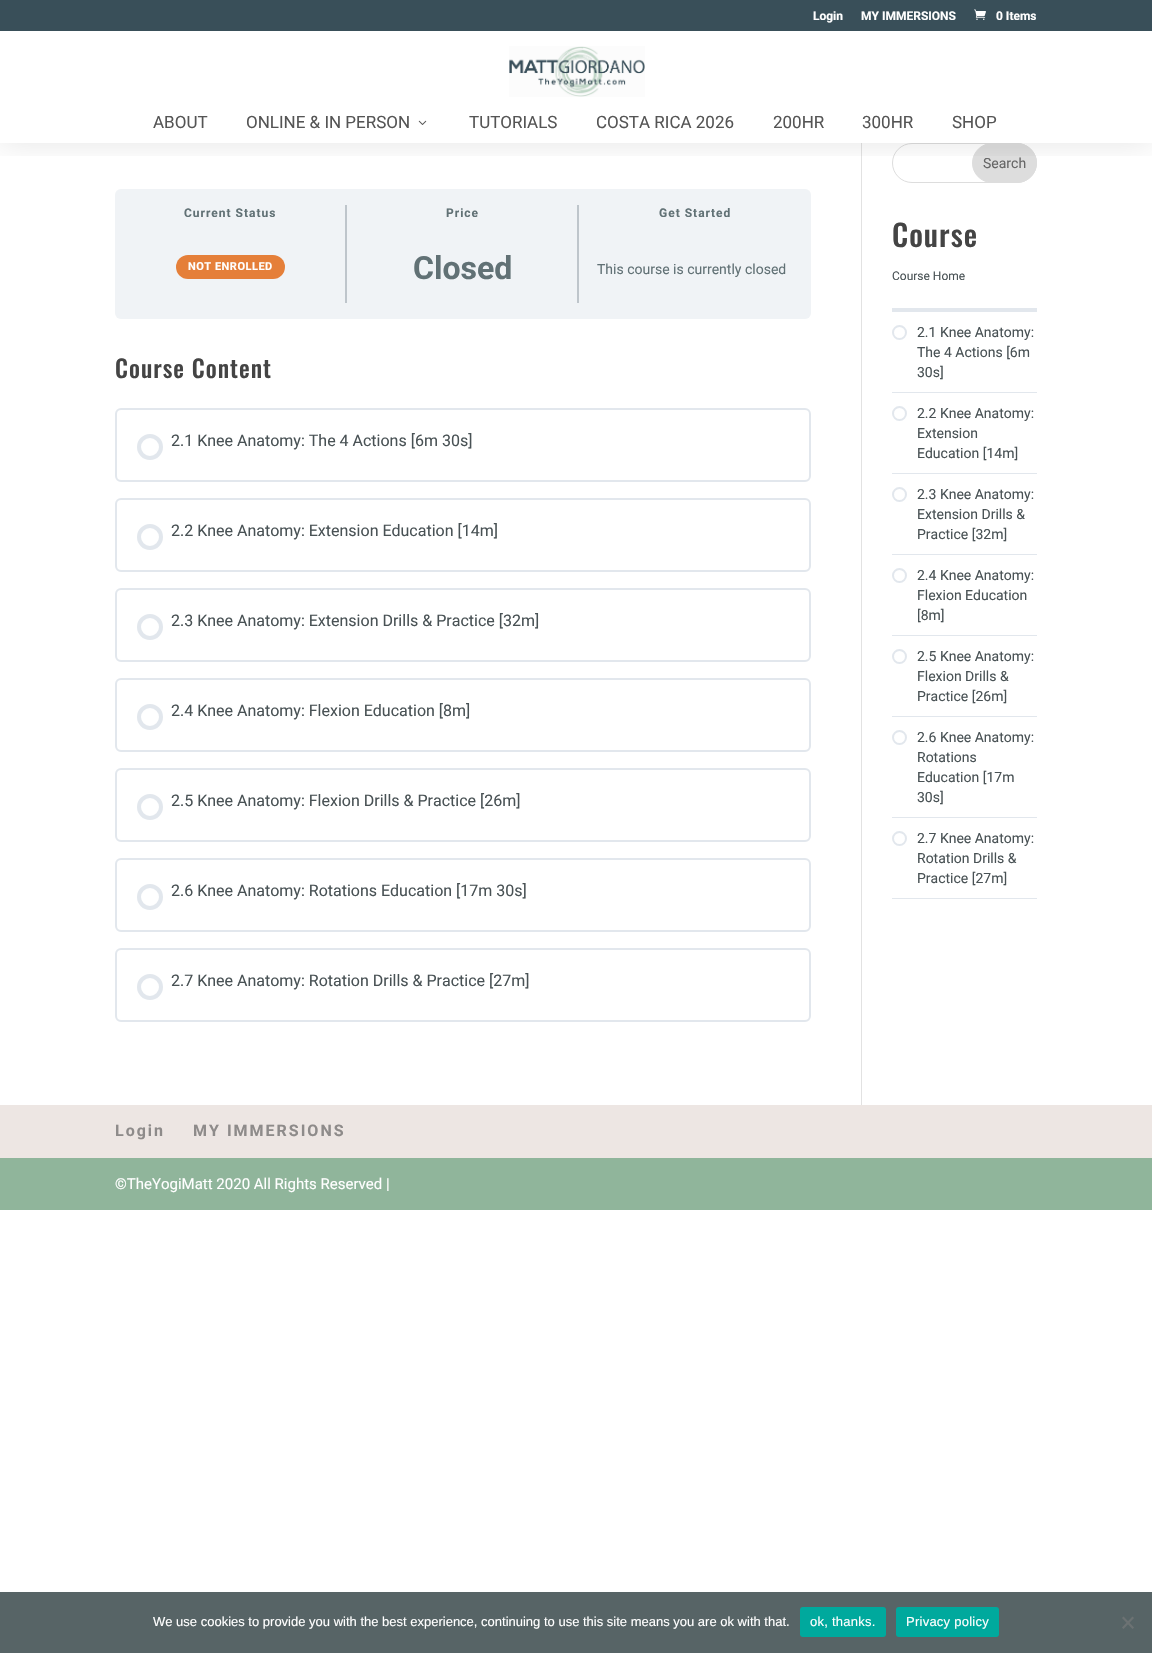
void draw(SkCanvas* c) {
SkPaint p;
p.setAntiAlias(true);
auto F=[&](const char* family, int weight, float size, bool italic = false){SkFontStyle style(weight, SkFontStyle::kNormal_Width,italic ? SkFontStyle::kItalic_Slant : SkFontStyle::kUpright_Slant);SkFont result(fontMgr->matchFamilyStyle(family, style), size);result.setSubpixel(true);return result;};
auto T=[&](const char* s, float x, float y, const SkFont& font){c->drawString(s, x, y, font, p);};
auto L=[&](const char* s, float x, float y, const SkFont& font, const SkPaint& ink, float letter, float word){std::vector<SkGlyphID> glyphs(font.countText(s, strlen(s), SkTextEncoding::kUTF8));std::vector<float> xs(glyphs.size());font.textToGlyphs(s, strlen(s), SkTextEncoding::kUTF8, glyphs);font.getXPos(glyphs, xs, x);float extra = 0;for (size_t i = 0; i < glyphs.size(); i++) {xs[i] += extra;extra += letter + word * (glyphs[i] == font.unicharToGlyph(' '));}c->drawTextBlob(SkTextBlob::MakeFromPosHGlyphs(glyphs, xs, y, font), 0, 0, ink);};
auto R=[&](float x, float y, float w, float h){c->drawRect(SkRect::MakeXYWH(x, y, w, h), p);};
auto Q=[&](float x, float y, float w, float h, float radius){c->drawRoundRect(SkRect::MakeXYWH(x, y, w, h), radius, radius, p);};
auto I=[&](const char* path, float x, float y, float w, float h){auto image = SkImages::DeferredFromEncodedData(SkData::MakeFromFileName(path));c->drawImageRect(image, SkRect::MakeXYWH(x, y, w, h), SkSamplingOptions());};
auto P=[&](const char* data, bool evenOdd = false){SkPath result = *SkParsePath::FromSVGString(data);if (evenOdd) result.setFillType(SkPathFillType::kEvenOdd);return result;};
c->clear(0xffffffff);
p.setColor(0xffe2e2e2);
R(861,143,1,962);
p.setStroke(true);
p.setStrokeWidth(1);
p.setColor(0xffdddddd);
c->drawRoundRect(SkRect::MakeXYWH(892.5,143.5,144,39),19.5,19.5,p);
p.setStroke(false);
c->drawRoundRect(SkRect::MakeXYWH(972.5,143.5,64,39),19.5,19.5,p);
p.setStroke(true);
c->drawRoundRect(SkRect::MakeXYWH(972.5,143.5,64,39),19.5,19.5,p);
c->save();
c->clipRect(SkRect::MakeXYWH(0,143,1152,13));
p.setStroke(false);
p.setColor(0x1a000000);
p.setMaskFilter(SkMaskFilter::MakeBlur(kNormal_SkBlurStyle, 15));
c->drawRect(SkRect::MakeXYWH(0,31,1152,112),p);
p.setMaskFilter(nullptr);
c->restore();
p.setColor(0xff394f59);
R(0,0,1152,31);
auto f1 = F("Roboto",700,12);
p.setColor(0xffffffff);
T("Login",813,20,f1);
T("MY IMMERSIONS",861,20,f1);
I("1.png",974,9,12,11);
T("0 Items",996,20,f1);
I("2.png",509,46,136,51);
auto f2 = F("Roboto",400,17);
p.setColor(0xff555555);
T("ABOUT",153,128,f2);
T("ONLINE & IN PERSON",246,128,f2);
I("3.png",418,120,9,5);
T("TUTORIALS",469,128,f2);
T("COSTA RICA 2026",596,128,f2);
T("200HR",773,128,f2);
T("300HR",862,128,f2);
T("SHOP",952,128,f2);
p.setColor(0xfff0f3f6);
Q(115,189,696,130,6);
p.setColor(0xffbec5cb);
R(345,205,2,98);
p.setColor(0xff617175);
L("Current Status",184,217,f1,p,1,0);
p.setColor(0xffe57f39);
Q(176,255,109,24,12);
auto f3 = F("Roboto",700,11);
p.setColor(0xffffffff);
L("NOT ENROLLED",188,270,f3,p,.5,0);
p.setColor(0xffbec5cb);
R(577,205,2,98);
p.setColor(0xff617175);
L("Price",446,217,f1,p,1,0);
auto f4 = F("Roboto",700,32);
T("Closed",413,279,f4);
L("Get Started",659,217,f1,p,1,0);
auto f5 = F("Roboto",400,14);
T("This course is currently closed",597,274,f5);
auto f6 = F("Oswald",500,24);
p.setColor(0xff444444);
L("Course Content",115,378,f6,p,1,0);
p.setStroke(true);
p.setStrokeWidth(2);
p.setColor(0xffe2e7ed);
c->drawRoundRect(SkRect::MakeXYWH(116,409,694,72),5,5,p);
p.setStrokeWidth(4);
c->drawCircle(150,447,11,p);
auto f7 = F("Roboto",400,16);
p.setStroke(false);
p.setColor(0xff495255);
T("2.1 Knee Anatomy: The 4 Actions [6m 30s]",171,446,f7);
p.setStroke(true);
p.setStrokeWidth(2);
p.setColor(0xffe2e7ed);
c->drawRoundRect(SkRect::MakeXYWH(116,499,694,72),5,5,p);
p.setStrokeWidth(4);
c->drawCircle(150,537,11,p);
p.setStroke(false);
p.setColor(0xff495255);
T("2.2 Knee Anatomy: Extension Education [14m]",171,536,f7);
p.setStroke(true);
p.setStrokeWidth(2);
p.setColor(0xffe2e7ed);
c->drawRoundRect(SkRect::MakeXYWH(116,589,694,72),5,5,p);
p.setStrokeWidth(4);
c->drawCircle(150,627,11,p);
p.setStroke(false);
p.setColor(0xff495255);
T("2.3 Knee Anatomy: Extension Drills & Practice [32m]",171,626,f7);
p.setStroke(true);
p.setStrokeWidth(2);
p.setColor(0xffe2e7ed);
c->drawRoundRect(SkRect::MakeXYWH(116,679,694,72),5,5,p);
p.setStrokeWidth(4);
c->drawCircle(150,717,11,p);
p.setStroke(false);
p.setColor(0xff495255);
T("2.4 Knee Anatomy: Flexion Education [8m]",171,716,f7);
p.setStroke(true);
p.setStrokeWidth(2);
p.setColor(0xffe2e7ed);
c->drawRoundRect(SkRect::MakeXYWH(116,769,694,72),5,5,p);
p.setStrokeWidth(4);
c->drawCircle(150,807,11,p);
p.setStroke(false);
p.setColor(0xff495255);
T("2.5 Knee Anatomy: Flexion Drills & Practice [26m]",171,806,f7);
p.setStroke(true);
p.setStrokeWidth(2);
p.setColor(0xffe2e7ed);
c->drawRoundRect(SkRect::MakeXYWH(116,859,694,72),5,5,p);
p.setStrokeWidth(4);
c->drawCircle(150,897,11,p);
p.setStroke(false);
p.setColor(0xff495255);
T("2.6 Knee Anatomy: Rotations Education [17m 30s]",171,896,f7);
p.setStroke(true);
p.setStrokeWidth(2);
p.setColor(0xffe2e7ed);
c->drawRoundRect(SkRect::MakeXYWH(116,949,694,72),5,5,p);
p.setStrokeWidth(4);
c->drawCircle(150,987,11,p);
p.setStroke(false);
p.setColor(0xff495255);
T("2.7 Knee Anatomy: Rotation Drills & Practice [27m]",171,986,f7);
p.setColor(0xff666666);
T("Search",983,168,f5);
auto f8 = F("Oswald",500,30);
p.setColor(0xff444444);
L("Course",892,247,f8,p,1,0);
p.setColor(0xffe2e7ed);
R(892,308,145,4);
auto f9 = F("Roboto",400,12);
p.setColor(0xff495255);
T("Course Home",892,280,f9);
p.setColor(0xffe2e7ed);
R(892,392,145,1);
p.setStroke(true);
p.setStrokeWidth(2);
c->drawCircle(899.5,332.5,6.5,p);
p.setStroke(false);
p.setColor(0xff495255);
T("2.1 Knee Anatomy:",917,337,f5);
T("The 4 Actions [6m",917,357,f5);
T("30s]",917,377,f5);
p.setColor(0xffe2e7ed);
R(892,473,145,1);
p.setStroke(true);
c->drawCircle(899.5,413.5,6.5,p);
p.setStroke(false);
p.setColor(0xff495255);
T("2.2 Knee Anatomy:",917,418,f5);
T("Extension",917,438,f5);
T("Education [14m]",917,458,f5);
p.setColor(0xffe2e7ed);
R(892,554,145,1);
p.setStroke(true);
c->drawCircle(899.5,494.5,6.5,p);
p.setStroke(false);
p.setColor(0xff495255);
T("2.3 Knee Anatomy:",917,499,f5);
T("Extension Drills &",917,519,f5);
T("Practice [32m]",917,539,f5);
p.setColor(0xffe2e7ed);
R(892,635,145,1);
p.setStroke(true);
c->drawCircle(899.5,575.5,6.5,p);
p.setStroke(false);
p.setColor(0xff495255);
T("2.4 Knee Anatomy:",917,580,f5);
T("Flexion Education",917,600,f5);
T("[8m]",917,620,f5);
p.setColor(0xffe2e7ed);
R(892,716,145,1);
p.setStroke(true);
c->drawCircle(899.5,656.5,6.5,p);
p.setStroke(false);
p.setColor(0xff495255);
T("2.5 Knee Anatomy:",917,661,f5);
T("Flexion Drills &",917,681,f5);
T("Practice [26m]",917,701,f5);
p.setColor(0xffe2e7ed);
R(892,817,145,1);
p.setStroke(true);
c->drawCircle(899.5,737.5,6.5,p);
p.setStroke(false);
p.setColor(0xff495255);
T("2.6 Knee Anatomy:",917,742,f5);
T("Rotations",917,762,f5);
T("Education [17m",917,782,f5);
T("30s]",917,802,f5);
p.setColor(0xffe2e7ed);
R(892,898,145,1);
p.setStroke(true);
c->drawCircle(899.5,838.5,6.5,p);
p.setStroke(false);
p.setColor(0xff495255);
T("2.7 Knee Anatomy:",917,843,f5);
T("Rotation Drills &",917,863,f5);
T("Practice [27m]",917,883,f5);
p.setColor(0xffede6e3);
R(0,1105,1152,53);
auto f10 = F("Roboto",700,16);
p.setColor(0xff8e8b8a);
L("Login",115,1136,f10,p,2,0);
L("MY IMMERSIONS",193,1136,f10,p,2,0);
p.setColor(0xff90b59b);
R(0,1158,1152,52);
auto f11 = F("Roboto",400,15);
p.setColor(0xffffffff);
T("©TheYogiMatt 2020 All Rights Reserved |",115,1189,f11);
p.setColor(0xff576466);
R(0,1592,1152,61);
auto f12 = F("Liberation Sans",400,13);
p.setColor(0xffffffff);
T("We use cookies to provide you with the best experience, continuing to use this site means you are ok with that.",153,1626,f12);
p.setColor(0xff00a99d);
Q(800,1607,86,30,3);
p.setColor(0xffffffff);
L("ok, thanks.",810,1626,f12,p,.25,0);
p.setColor(0xff00a99d);
Q(896,1607,103,30,3);
p.setColor(0xffffffff);
L("Privacy policy",906,1626,f12,p,.25,0);
p.setColor(0xff6c7273);
c->drawPath(P("M1132.5 1616.5l1.5 1.5l-10.5 11l-1.5-1.5z"),p);
c->drawPath(P("M1122 1618l1.5-1.5l10.5 11l-1.5 1.5z"),p);
}
